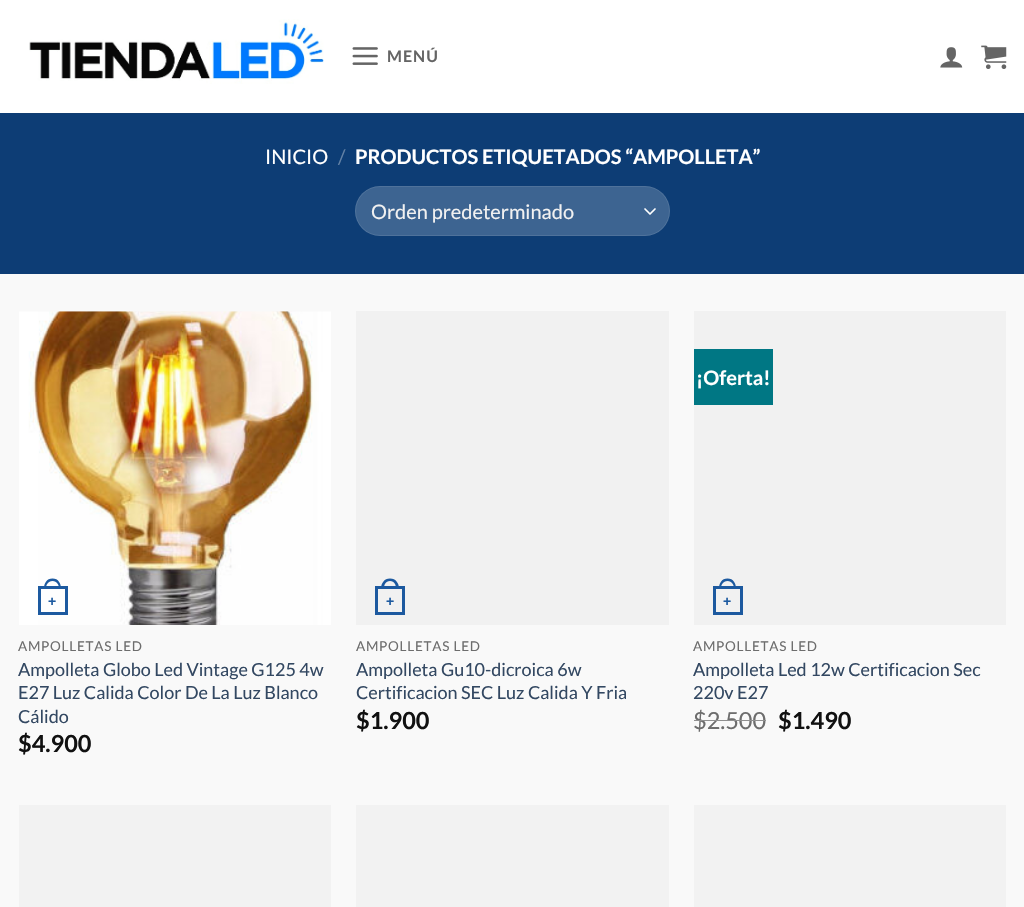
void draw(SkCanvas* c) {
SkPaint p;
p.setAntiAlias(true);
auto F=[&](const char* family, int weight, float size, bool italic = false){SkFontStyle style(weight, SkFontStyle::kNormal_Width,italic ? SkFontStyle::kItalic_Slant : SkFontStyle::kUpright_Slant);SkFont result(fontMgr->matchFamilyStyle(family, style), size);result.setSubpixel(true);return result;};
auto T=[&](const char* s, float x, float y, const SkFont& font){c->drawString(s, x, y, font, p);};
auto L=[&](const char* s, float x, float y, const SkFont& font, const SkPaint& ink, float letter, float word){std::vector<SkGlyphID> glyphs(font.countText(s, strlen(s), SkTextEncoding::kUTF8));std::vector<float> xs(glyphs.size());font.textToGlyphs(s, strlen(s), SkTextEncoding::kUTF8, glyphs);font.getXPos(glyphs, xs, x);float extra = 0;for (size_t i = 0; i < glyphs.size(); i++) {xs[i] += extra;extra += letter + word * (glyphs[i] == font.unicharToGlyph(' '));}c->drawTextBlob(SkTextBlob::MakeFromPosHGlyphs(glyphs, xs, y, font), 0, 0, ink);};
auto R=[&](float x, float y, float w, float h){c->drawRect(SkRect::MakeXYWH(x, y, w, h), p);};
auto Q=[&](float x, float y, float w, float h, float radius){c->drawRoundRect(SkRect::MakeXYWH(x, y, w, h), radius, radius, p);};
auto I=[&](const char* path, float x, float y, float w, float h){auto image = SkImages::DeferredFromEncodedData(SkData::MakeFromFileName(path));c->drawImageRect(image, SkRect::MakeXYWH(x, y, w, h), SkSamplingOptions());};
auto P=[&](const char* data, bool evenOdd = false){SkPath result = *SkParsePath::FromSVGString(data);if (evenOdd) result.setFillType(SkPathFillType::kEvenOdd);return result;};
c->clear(0xfff9f9f9);
p.setColor(0xffffffff);
R(0,0,1024,113);
I("1.png",29,19,295,65);
I("2.png",352,47,26,18);
auto f1 = F("Lato",700,16);
p.setColor(0xff656565);
L("MENÚ",387,62,f1,p,1,0);
I("3.png",940,47,23,21);
I("4.png",981,45,26,24);
p.setColor(0xff0d3d75);
R(0,113,1024,161);
p.setColor(0xff133e71);
R(19,113,987,1);
auto f2 = F("Lato",400,20);
p.setColor(0xffffffff);
T("INICIO",265,164,f2);
p.setColor(0xff6281a5);
T("/",338,164,f2);
auto f3 = F("Lato",700,20);
p.setColor(0xffffffff);
T("PRODUCTOS ETIQUETADOS “AMPOLLETA”",355,164,f3);
p.setColor(0xff3d6491);
Q(355,186,315,50,25);
p.setStroke(true);
p.setStrokeWidth(1.7);
p.setStrokeCap(SkPaint::kRound_Cap);
p.setStrokeJoin(SkPaint::kRound_Join);
p.setColor(0xffffffff);
c->drawPath(P("M645 209l5 5l5-5"),p);
p.setStrokeWidth(1);
p.setStrokeCap(SkPaint::kButt_Cap);
p.setStrokeJoin(SkPaint::kMiter_Join);
p.setColor(0x17ffffff);
c->drawRoundRect(SkRect::MakeXYWH(355.5,186.5,314,49),24.5,24.5,p);
p.setStroke(false);
p.setColor(0xfff1f1f1);
T("Orden predeterminado",371,219,f2);
I("5.png",19,311,312,314);
p.setStroke(true);
p.setStrokeWidth(3);
p.setColor(0xff1d5aa0);
c->drawRect(SkRect::MakeXYWH(39.5,587.5,27,26),p);
p.setStroke(false);
c->drawPath(P("M52.5 578.5c6 0 8.5 5 8.5 10h-17c0-5 2.5-10 8.5-10zm0 2.5c4.5 0 6.5 4 6.5 7.5h-13c0-3.5 2-7.5 6.5-7.5z",true),p);
auto f4 = F("Liberation Sans",700,14);
T("+",48,606,f4);
auto f5 = F("Lato",400,13.5);
p.setColor(0xff6d6d6d);
L("AMPOLLETAS LED",18,651,f5,p,.75,0);
auto f6 = F("Lato",400,18);
p.setColor(0xff334862);
T("Ampolleta Globo Led Vintage G125 4w",18,676,f6);
T("E27 Luz Calida Color De La Luz Blanco",18,699,f6);
T("Cálido",18,723,f6);
auto f7 = F("Lato",700,23.5);
p.setColor(0xff111111);
T("$4.900",18,752,f7);
p.setColor(0xfff1f1f1);
R(356,311,313,314);
p.setStroke(true);
p.setColor(0xff1c599f);
c->drawRect(SkRect::MakeXYWH(376.5,587.5,27,26),p);
p.setStroke(false);
c->drawPath(P("M390 578.5c6 0 9 5 9 10h-18c0-5 3-10 9-10zm0 2.5c4.5 0 6 4 6 7.5h-12c0-3.5 1.5-7.5 6-7.5z",true),p);
p.setColor(0xff1d5aa0);
T("+",386,606,f4);
p.setColor(0xff6d6d6d);
L("AMPOLLETAS LED",356,651,f5,p,.75,0);
p.setColor(0xff334862);
T("Ampolleta Gu10-dicroica 6w",356,676,f6);
T("Certificacion SEC Luz Calida Y Fria",356,699,f6);
p.setColor(0xff111111);
T("$1.900",356,729,f7);
p.setColor(0xfff1f1f1);
R(694,311,312,314);
p.setColor(0xff007784);
R(694,349,79,56);
p.setColor(0xffffffff);
T("¡Oferta!",696,385,f3);
p.setStroke(true);
p.setColor(0xff1c599f);
c->drawRect(SkRect::MakeXYWH(714.5,587.5,27,26),p);
p.setStroke(false);
c->drawPath(P("M727.5 578.5c6 0 8.5 5 8.5 10h-17c0-5 2.5-10 8.5-10zm0 2.5c4.5 0 6.5 4 6.5 7.5h-13c0-3.5 2-7.5 6.5-7.5z",true),p);
p.setColor(0xff1d5aa0);
T("+",723,606,f4);
p.setColor(0xff6d6d6d);
L("AMPOLLETAS LED",693,651,f5,p,.75,0);
p.setColor(0xff334862);
T("Ampolleta Led 12w Certificacion Sec",693,676,f6);
T("220v E27",693,699,f6);
auto f8 = F("Lato",400,23.5);
p.setColor(0xff6d6d6d);
T("$2.500",693,729,f8);
p.setColor(0xff909090);
R(694,720,72,1);
p.setColor(0xff111111);
T("$1.490",778,729,f7);
p.setColor(0xfff2f2f2);
R(19,805,312,102);
R(356,805,313,102);
R(694,805,312,102);
}
